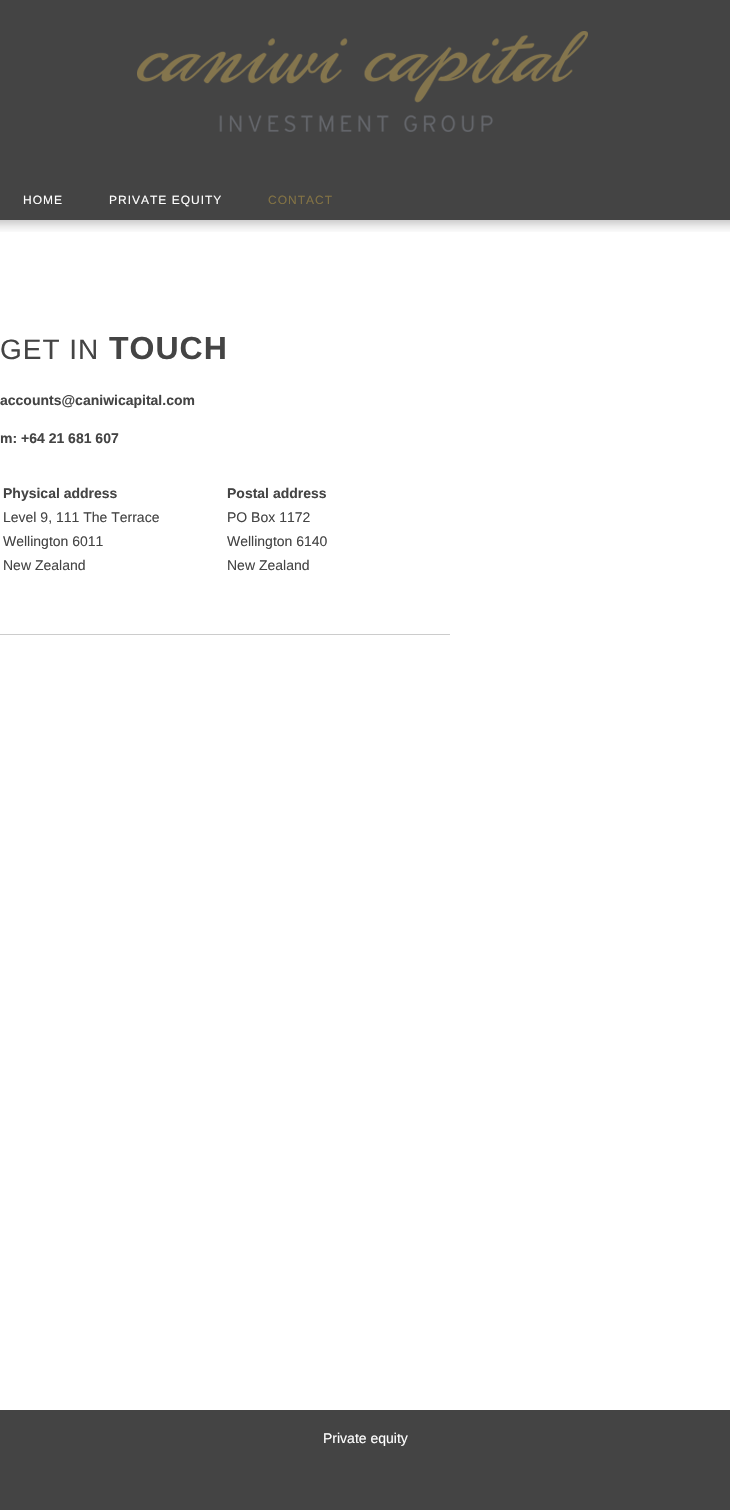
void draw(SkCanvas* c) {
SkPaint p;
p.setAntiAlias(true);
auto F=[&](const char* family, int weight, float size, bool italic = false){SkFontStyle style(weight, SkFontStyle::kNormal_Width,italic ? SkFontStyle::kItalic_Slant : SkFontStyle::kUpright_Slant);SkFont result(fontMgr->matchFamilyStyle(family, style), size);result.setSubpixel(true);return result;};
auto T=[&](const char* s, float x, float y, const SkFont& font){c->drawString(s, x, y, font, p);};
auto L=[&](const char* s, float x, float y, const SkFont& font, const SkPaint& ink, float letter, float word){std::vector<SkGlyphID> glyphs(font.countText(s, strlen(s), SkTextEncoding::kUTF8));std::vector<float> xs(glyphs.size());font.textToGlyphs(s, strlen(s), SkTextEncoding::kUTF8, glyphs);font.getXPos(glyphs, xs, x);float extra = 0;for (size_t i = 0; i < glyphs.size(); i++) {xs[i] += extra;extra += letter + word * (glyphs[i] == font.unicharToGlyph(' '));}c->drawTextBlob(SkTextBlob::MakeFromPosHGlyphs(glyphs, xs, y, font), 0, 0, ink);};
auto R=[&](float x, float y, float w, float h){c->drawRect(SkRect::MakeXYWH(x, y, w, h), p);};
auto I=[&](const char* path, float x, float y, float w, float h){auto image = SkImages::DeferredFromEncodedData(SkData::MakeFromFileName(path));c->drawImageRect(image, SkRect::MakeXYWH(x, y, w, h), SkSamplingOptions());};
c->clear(0xffffffff);
p.setColor(0xff444444);
R(0,0,730,220);
I("1.png",137,31,451,101);
auto f1 = F("Liberation Sans",400,12);
p.setColor(0xffffffff);
L("HOME",23,204,f1,p,1,0);
L("PRIVATE EQUITY",109,204,f1,p,1,0);
p.setColor(0xff827244);
L("CONTACT",268,204,f1,p,1,0);
I("2.png",0,220,730,12);
auto f2 = F("Liberation Sans",400,28);
p.setColor(0xff444444);
L("GET IN",0,359,f2,p,1,0);
auto f3 = F("Liberation Sans",700,32);
L("TOUCH",109,359,f3,p,1,0);
auto f4 = F("Liberation Sans",700,14);
T("accounts@caniwicapital.com",0,405,f4);
T("m: +64 21 681 607",0,443,f4);
T("Physical address",3,498,f4);
auto f5 = F("Liberation Sans",400,14);
T("Level 9, 111 The Terrace",3,522,f5);
T("Wellington 6011",3,546,f5);
T("New Zealand",3,570,f5);
T("Postal address",227,498,f4);
T("PO Box 1172",227,522,f5);
T("Wellington 6140",227,546,f5);
T("New Zealand",227,570,f5);
p.setColor(0xffcccccc);
R(0,634,450,1);
p.setColor(0xff444444);
R(0,1410,730,100);
p.setColor(0xffffffff);
T("Private equity",323,1443,f5);
}
